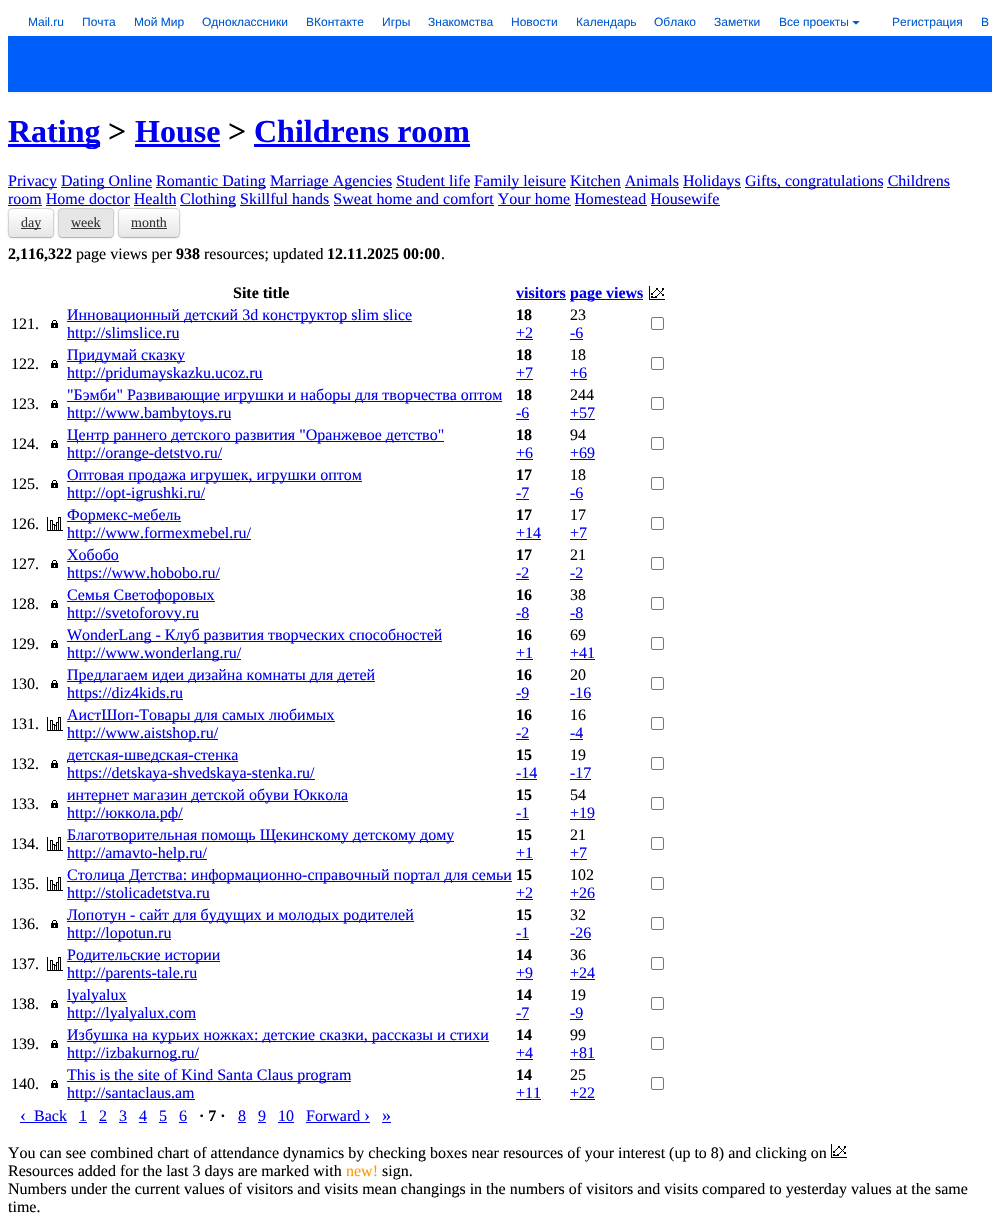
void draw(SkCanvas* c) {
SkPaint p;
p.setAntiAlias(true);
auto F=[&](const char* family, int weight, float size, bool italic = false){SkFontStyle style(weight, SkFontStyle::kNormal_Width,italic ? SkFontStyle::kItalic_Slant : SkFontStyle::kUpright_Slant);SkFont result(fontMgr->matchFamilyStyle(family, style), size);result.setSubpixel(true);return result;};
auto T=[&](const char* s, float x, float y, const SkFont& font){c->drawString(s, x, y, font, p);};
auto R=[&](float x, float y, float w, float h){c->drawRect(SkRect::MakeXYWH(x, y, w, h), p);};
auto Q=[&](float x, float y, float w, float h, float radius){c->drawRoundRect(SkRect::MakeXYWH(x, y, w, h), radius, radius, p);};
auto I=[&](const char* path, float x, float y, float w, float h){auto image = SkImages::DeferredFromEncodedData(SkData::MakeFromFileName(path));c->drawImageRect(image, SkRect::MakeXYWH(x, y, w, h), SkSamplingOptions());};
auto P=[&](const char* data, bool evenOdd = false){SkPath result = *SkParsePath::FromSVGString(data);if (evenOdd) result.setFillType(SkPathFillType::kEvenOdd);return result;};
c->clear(0xffffffff);
auto f1 = F("Liberation Sans",400,12);
p.setColor(0xff005bd1);
T("Mail.ru",28,26,f1);
T("Почта",82,26,f1);
T("Мой Мир",134,26,f1);
T("Одноклассники",202,26,f1);
T("ВКонтакте",306,26,f1);
T("Игры",382,26,f1);
T("Знакомства",428,26,f1);
T("Новости",511,26,f1);
T("Календарь",576,26,f1);
T("Облако",654,26,f1);
T("Заметки",714,26,f1);
T("Все проекты",779,26,f1);
c->drawPath(P("M852 21h8l-4 4z"),p);
p.setColor(0xffffffff);
c->drawPath(P("M860 21v8l-4-4zm-8 8v-8l4 4z"),p);
p.setColor(0xff005bd1);
T("Регистрация",892,26,f1);
T("В",981,26,f1);
p.setColor(0xfff5f5f5);
R(8,92,984,2);
p.setColor(0xff005ff9);
R(8,36,984,56);
p.setColor(0xff0000ee);
R(8,144,92,3);
auto f2 = F("Liberation Serif",700,32);
T("Rating",8,142,f2);
p.setColor(0xff000000);
T(">",108,142,f2);
p.setColor(0xff0000ee);
T("House",135,142,f2);
R(135,144,85,3);
p.setColor(0xff000000);
T(">",228,142,f2);
p.setColor(0xff0000ee);
T("Childrens room",254,142,f2);
R(254,144,216,3);
R(8,187,49,1);
auto f3 = F("Liberation Serif",400,16);
T("Privacy",8,186,f3);
R(61,187,91,1);
T("Dating Online",61,186,f3);
R(156,187,110,1);
T("Romantic Dating",156,186,f3);
R(270,187,122,1);
T("Marriage Agencies Student life",270,186,f3);
R(474,187,92,1);
T("Family leisure Kitchen Animals",474,186,f3);
R(683,187,58,1);
T("Holidays",683,186,f3);
R(745,187,138,1);
T("Gifts, congratulations Childrens",745,186,f3);
R(396,187,74,1);
R(570,187,51,1);
R(625,187,54,1);
T("room Home doctor Health",8,204,f3);
R(887,187,63,1);
R(8,205,34,1);
R(180,205,56,1);
T("Clothing Skillful hands Sweat home and comfort Your home Homestead Housewife",180,204,f3);
R(46,205,84,1);
R(134,205,42,1);
R(240,205,90,1);
R(334,205,160,1);
R(498,205,73,1);
R(575,205,72,1);
R(651,205,69,1);
p.setColor(0x0d000000);
p.setMaskFilter(SkMaskFilter::MakeBlur(kNormal_SkBlurStyle, 1));
c->drawRoundRect(SkRect::MakeXYWH(8,209,46,30),4,4,p);
p.setMaskFilter(nullptr);
p.setColor(0xfff5f5f5);
Q(8,208,46,30,4);
c->save();
c->clipPath(P("M12 208h38c2 0 4 2 4 4v22c0 2-2 4-4 4h-38c-2 0-4-2-4-4v-22c0-2 2-4 4-4z"),true);
{
const SkColor colors[] = {0xffffffff,0xffe6e6e6};
const float stops[] = {0,1};
const SkPoint ends[] = {{31,209}, {31,237}};
p.setShader(SkGradientShader::MakeLinear(ends, colors, stops, 2, SkTileMode::kClamp));
p.setAlpha(255);
}
R(8,209,46,28);
c->restore();
p.setStroke(true);
p.setStrokeWidth(1);
p.setShader(nullptr);
p.setColor(0xffb3b3b3);
c->drawPath(P("M52.5 236.5c-.5 .5-1.5 1-2.5 1h-38c-1 0-2-.5-2.5-1"),p);
p.setColor(0xffcccccc);
c->drawPath(P("M9.5 236.5c-2-2-1-10.5-1-13.5c0-13.5-3-14.5 10-14.5h25c13 0 10 1 10 14.5c0 3 1 11.5-1 13.5"),p);
p.setStroke(false);
p.setColor(0xff333333);
R(21,228,20,1);
auto f4 = F("Liberation Serif",400,14);
T("day",21,227,f4);
p.setColor(0x0d000000);
p.setMaskFilter(SkMaskFilter::MakeBlur(kNormal_SkBlurStyle, 1));
c->drawRoundRect(SkRect::MakeXYWH(58,209,56,30),4,4,p);
p.setMaskFilter(nullptr);
p.setColor(0xffe6e6e6);
Q(58,208,56,30,4);
p.setStroke(true);
p.setColor(0xffb3b3b3);
c->drawPath(P("M112.5 236.5l-2 1h-49l-2-1"),p);
p.setColor(0xffcccccc);
c->drawPath(P("M59.5 236.5c-2-2-1-10.5-1-13.5c0-15-3-14.5 11.5-14.5h32c14.5 0 11.5-.5 11.5 14.5c0 3 1 11.5-1 13.5"),p);
p.setStroke(false);
p.setColor(0xff333333);
T("week",71,227,f4);
R(71,228,30,1);
p.setColor(0x0d000000);
p.setMaskFilter(SkMaskFilter::MakeBlur(kNormal_SkBlurStyle, 1));
c->drawRoundRect(SkRect::MakeXYWH(118,209,62,30),4,4,p);
p.setMaskFilter(nullptr);
p.setColor(0xfff5f5f5);
Q(118,208,62,30,4);
c->save();
c->clipPath(P("M122 208h54c2 0 4 2 4 4v22c0 2-2 4-4 4h-54c-2 0-4-2-4-4v-22c0-2 2-4 4-4z"),true);
{
const SkColor colors[] = {0xffffffff,0xffe6e6e6};
const float stops[] = {0,1};
const SkPoint ends[] = {{149,209}, {149,237}};
p.setShader(SkGradientShader::MakeLinear(ends, colors, stops, 2, SkTileMode::kClamp));
p.setAlpha(255);
}
R(118,209,62,28);
c->restore();
p.setShader(nullptr);
p.setColor(0xffffffff);
c->drawPath(P("M122 210h54c2 0 3 1 3 3c0-6-8-4-12-4h-36c-4 0-12-2-12 4c0-2 1-3 3-3z"),p);
p.setStroke(true);
p.setColor(0xffb3b3b3);
c->drawPath(P("M178.5 236.5l-2 1h-55l-2-1"),p);
p.setColor(0xffcccccc);
c->drawPath(P("M119.5 236.5c-2-2-1-10.5-1-13.5c0-15.5-2.5-14.5 12.5-14.5h36c15 0 12.5-1 12.5 14.5c0 3 1 11.5-1 13.5"),p);
p.setStroke(false);
p.setColor(0xff333333);
T("month",131,227,f4);
R(131,228,36,1);
auto f5 = F("Liberation Serif",700,16);
p.setColor(0xff000000);
T("2,116,322",8,259,f5);
T("page views per",76,259,f3);
T("938",176,259,f5);
T("resources; updated",204,259,f3);
T("12.11.2025 00:00",327,259,f5);
T(".",441,259,f3);
T("Site title",233,298,f5);
p.setColor(0xff0000ee);
T("visitors",516,298,f5);
R(516,299,50,1);
R(570,299,73,1);
T("page views",570,298,f5);
I("1.png",649,286,16,14);
p.setColor(0xff000000);
T("121.",11,329,f3);
I("2.png",51,320,7,8);
p.setColor(0xff0000ee);
R(67,321,345,1);
T("Инновационный детский 3d конструктор slim slice",67,320,f3);
R(67,339,112,1);
T("http://slimslice.ru",67,338,f3);
p.setColor(0xff000000);
T("18",516,320,f5);
p.setColor(0xff0000ee);
T("+2",516,338,f3);
R(516,339,17,1);
p.setColor(0xff000000);
T("23",570,320,f3);
p.setColor(0xff0000ee);
T("-6",570,338,f3);
R(570,339,13,1);
p.setStroke(true);
p.setColor(0xff767676);
c->drawRoundRect(SkRect::MakeXYWH(651.5,317.5,12,12),1.5,1.5,p);
p.setStroke(false);
p.setColor(0xff000000);
T("122.",11,369,f3);
I("2.png",51,360,7,8);
p.setColor(0xff0000ee);
R(67,361,118,1);
T("Придумай сказку",67,360,f3);
R(67,379,196,1);
T("http://pridumayskazku.ucoz.ru",67,378,f3);
p.setColor(0xff000000);
T("18",516,360,f5);
p.setColor(0xff0000ee);
T("+7",516,378,f3);
R(516,379,17,1);
p.setColor(0xff000000);
T("18",570,360,f3);
p.setColor(0xff0000ee);
T("+6",570,378,f3);
R(570,379,17,1);
p.setStroke(true);
p.setColor(0xff767676);
c->drawRoundRect(SkRect::MakeXYWH(651.5,357.5,12,12),1.5,1.5,p);
p.setStroke(false);
p.setColor(0xff000000);
T("123.",11,409,f3);
I("2.png",51,400,7,8);
p.setColor(0xff0000ee);
R(67,401,435,1);
T("\"Бэмби\" Развивающие игрушки и наборы для творчества оптом",67,400,f3);
R(67,419,164,1);
T("http://www.bambytoys.ru",67,418,f3);
p.setColor(0xff000000);
T("18",516,400,f5);
p.setColor(0xff0000ee);
T("-6",516,418,f3);
R(516,419,13,1);
p.setColor(0xff000000);
T("244",570,400,f3);
p.setColor(0xff0000ee);
T("+57",570,418,f3);
R(570,419,25,1);
p.setStroke(true);
p.setColor(0xff767676);
c->drawRoundRect(SkRect::MakeXYWH(651.5,397.5,12,12),1.5,1.5,p);
p.setStroke(false);
p.setColor(0xff000000);
T("124.",11,449,f3);
I("2.png",51,440,7,8);
p.setColor(0xff0000ee);
R(67,441,377,1);
T("Центр раннего детского развития \"Оранжевое детство\"",67,440,f3);
R(67,459,155,1);
T("http://orange-detstvo.ru/",67,458,f3);
p.setColor(0xff000000);
T("18",516,440,f5);
p.setColor(0xff0000ee);
T("+6",516,458,f3);
R(516,459,17,1);
p.setColor(0xff000000);
T("94",570,440,f3);
p.setColor(0xff0000ee);
T("+69",570,458,f3);
R(570,459,25,1);
p.setStroke(true);
p.setColor(0xff767676);
c->drawRoundRect(SkRect::MakeXYWH(651.5,437.5,12,12),1.5,1.5,p);
p.setStroke(false);
p.setColor(0xff000000);
T("125.",11,489,f3);
I("2.png",51,480,7,8);
p.setColor(0xff0000ee);
R(67,481,295,1);
T("Оптовая продажа игрушек, игрушки оптом",67,480,f3);
R(67,499,138,1);
T("http://opt-igrushki.ru/",67,498,f3);
p.setColor(0xff000000);
T("17",516,480,f5);
p.setColor(0xff0000ee);
T("-7",516,498,f3);
R(516,499,13,1);
p.setColor(0xff000000);
T("18",570,480,f3);
p.setColor(0xff0000ee);
T("-6",570,498,f3);
R(570,499,13,1);
p.setStroke(true);
p.setColor(0xff767676);
c->drawRoundRect(SkRect::MakeXYWH(651.5,477.5,12,12),1.5,1.5,p);
p.setStroke(false);
p.setColor(0xff000000);
T("126.",11,529,f3);
I("3.png",47,517,16,14);
p.setColor(0xff0000ee);
R(67,521,114,1);
T("Формекс-мебель",67,520,f3);
R(67,539,184,1);
T("http://www.formexmebel.ru/",67,538,f3);
p.setColor(0xff000000);
T("17",516,520,f5);
p.setColor(0xff0000ee);
T("+14",516,538,f3);
R(516,539,25,1);
p.setColor(0xff000000);
T("17",570,520,f3);
p.setColor(0xff0000ee);
T("+7",570,538,f3);
R(570,539,17,1);
p.setStroke(true);
p.setColor(0xff767676);
c->drawRoundRect(SkRect::MakeXYWH(651.5,517.5,12,12),1.5,1.5,p);
p.setStroke(false);
p.setColor(0xff000000);
T("127.",11,569,f3);
I("2.png",51,560,7,8);
p.setColor(0xff0000ee);
T("Хобобо",67,560,f3);
R(67,561,52,1);
R(67,579,153,1);
T("https://www.hobobo.ru/",67,578,f3);
p.setColor(0xff000000);
T("17",516,560,f5);
p.setColor(0xff0000ee);
T("-2",516,578,f3);
R(516,579,13,1);
p.setColor(0xff000000);
T("21",570,560,f3);
p.setColor(0xff0000ee);
T("-2",570,578,f3);
R(570,579,13,1);
p.setStroke(true);
p.setColor(0xff767676);
c->drawRoundRect(SkRect::MakeXYWH(651.5,557.5,12,12),1.5,1.5,p);
p.setStroke(false);
p.setColor(0xff000000);
T("128.",11,609,f3);
I("2.png",51,600,7,8);
p.setColor(0xff0000ee);
R(67,601,148,1);
T("Семья Светофоровых",67,600,f3);
R(67,619,132,1);
T("http://svetoforovy.ru",67,618,f3);
p.setColor(0xff000000);
T("16",516,600,f5);
p.setColor(0xff0000ee);
T("-8",516,618,f3);
R(516,619,13,1);
p.setColor(0xff000000);
T("38",570,600,f3);
p.setColor(0xff0000ee);
T("-8",570,618,f3);
R(570,619,13,1);
p.setStroke(true);
p.setColor(0xff767676);
c->drawRoundRect(SkRect::MakeXYWH(651.5,597.5,12,12),1.5,1.5,p);
p.setStroke(false);
p.setColor(0xff000000);
T("129.",11,649,f3);
I("2.png",51,640,7,8);
p.setColor(0xff0000ee);
R(67,641,375,1);
T("WonderLang - Клуб развития творческих способностей",67,640,f3);
R(67,659,174,1);
T("http://www.wonderlang.ru/",67,658,f3);
p.setColor(0xff000000);
T("16",516,640,f5);
p.setColor(0xff0000ee);
T("+1",516,658,f3);
R(516,659,17,1);
p.setColor(0xff000000);
T("69",570,640,f3);
p.setColor(0xff0000ee);
T("+41",570,658,f3);
R(570,659,25,1);
p.setStroke(true);
p.setColor(0xff767676);
c->drawRoundRect(SkRect::MakeXYWH(651.5,637.5,12,12),1.5,1.5,p);
p.setStroke(false);
p.setColor(0xff000000);
T("130.",11,689,f3);
I("2.png",51,680,7,8);
p.setColor(0xff0000ee);
R(67,681,308,1);
T("Предлагаем идеи дизайна комнаты для детей",67,680,f3);
R(67,699,116,1);
T("https://diz4kids.ru",67,698,f3);
p.setColor(0xff000000);
T("16",516,680,f5);
p.setColor(0xff0000ee);
T("-9",516,698,f3);
R(516,699,13,1);
p.setColor(0xff000000);
T("20",570,680,f3);
p.setColor(0xff0000ee);
T("-16",570,698,f3);
R(570,699,21,1);
p.setStroke(true);
p.setColor(0xff767676);
c->drawRoundRect(SkRect::MakeXYWH(651.5,677.5,12,12),1.5,1.5,p);
p.setStroke(false);
p.setColor(0xff000000);
T("131.",11,729,f3);
I("3.png",47,717,16,14);
p.setColor(0xff0000ee);
R(67,721,268,1);
T("АистШоп-Товары для самых любимых",67,720,f3);
R(67,739,151,1);
T("http://www.aistshop.ru/",67,738,f3);
p.setColor(0xff000000);
T("16",516,720,f5);
p.setColor(0xff0000ee);
T("-2",516,738,f3);
R(516,739,13,1);
p.setColor(0xff000000);
T("16",570,720,f3);
p.setColor(0xff0000ee);
T("-4",570,738,f3);
R(570,739,13,1);
p.setStroke(true);
p.setColor(0xff767676);
c->drawRoundRect(SkRect::MakeXYWH(651.5,717.5,12,12),1.5,1.5,p);
p.setStroke(false);
p.setColor(0xff000000);
T("132.",11,769,f3);
I("2.png",51,760,7,8);
p.setColor(0xff0000ee);
R(67,761,171,1);
T("детская-шведская-стенка",67,760,f3);
R(67,779,248,1);
T("https://detskaya-shvedskaya-stenka.ru/",67,778,f3);
p.setColor(0xff000000);
T("15",516,760,f5);
p.setColor(0xff0000ee);
T("-14",516,778,f3);
R(516,779,21,1);
p.setColor(0xff000000);
T("19",570,760,f3);
p.setColor(0xff0000ee);
T("-17",570,778,f3);
R(570,779,21,1);
p.setStroke(true);
p.setColor(0xff767676);
c->drawRoundRect(SkRect::MakeXYWH(651.5,757.5,12,12),1.5,1.5,p);
p.setStroke(false);
p.setColor(0xff000000);
T("133.",11,809,f3);
I("2.png",51,800,7,8);
p.setColor(0xff0000ee);
R(67,801,281,1);
T("интернет магазин детской обуви Юккола",67,800,f3);
R(67,819,116,1);
T("http://юккола.рф/",67,818,f3);
p.setColor(0xff000000);
T("15",516,800,f5);
p.setColor(0xff0000ee);
T("-1",516,818,f3);
R(516,819,13,1);
p.setColor(0xff000000);
T("54",570,800,f3);
p.setColor(0xff0000ee);
T("+19",570,818,f3);
R(570,819,25,1);
p.setStroke(true);
p.setColor(0xff767676);
c->drawRoundRect(SkRect::MakeXYWH(651.5,797.5,12,12),1.5,1.5,p);
p.setStroke(false);
p.setColor(0xff000000);
T("134.",11,849,f3);
I("3.png",47,837,16,14);
p.setColor(0xff0000ee);
R(67,841,387,1);
T("Благотворительная помощь Щекинскому детскому дому",67,840,f3);
R(67,859,140,1);
T("http://amavto-help.ru/",67,858,f3);
p.setColor(0xff000000);
T("15",516,840,f5);
p.setColor(0xff0000ee);
T("+1",516,858,f3);
R(516,859,17,1);
p.setColor(0xff000000);
T("21",570,840,f3);
p.setColor(0xff0000ee);
T("+7",570,858,f3);
R(570,859,17,1);
p.setStroke(true);
p.setColor(0xff767676);
c->drawRoundRect(SkRect::MakeXYWH(651.5,837.5,12,12),1.5,1.5,p);
p.setStroke(false);
p.setColor(0xff000000);
T("135.",11,889,f3);
I("3.png",47,877,16,14);
p.setColor(0xff0000ee);
R(67,881,445,1);
T("Столица Детства: информационно-справочный портал для семьи",67,880,f3);
R(67,899,143,1);
T("http://stolicadetstva.ru",67,898,f3);
p.setColor(0xff000000);
T("15",516,880,f5);
p.setColor(0xff0000ee);
T("+2",516,898,f3);
R(516,899,17,1);
p.setColor(0xff000000);
T("102",570,880,f3);
p.setColor(0xff0000ee);
T("+26",570,898,f3);
R(570,899,25,1);
p.setStroke(true);
p.setColor(0xff767676);
c->drawRoundRect(SkRect::MakeXYWH(651.5,877.5,12,12),1.5,1.5,p);
p.setStroke(false);
p.setColor(0xff000000);
T("136.",11,929,f3);
I("2.png",51,920,7,8);
p.setColor(0xff0000ee);
R(67,921,347,1);
T("Лопотун - сайт для будущих и молодых родителей",67,920,f3);
R(67,939,104,1);
T("http://lopotun.ru",67,938,f3);
p.setColor(0xff000000);
T("15",516,920,f5);
p.setColor(0xff0000ee);
T("-1",516,938,f3);
R(516,939,13,1);
p.setColor(0xff000000);
T("32",570,920,f3);
p.setColor(0xff0000ee);
T("-26",570,938,f3);
R(570,939,21,1);
p.setStroke(true);
p.setColor(0xff767676);
c->drawRoundRect(SkRect::MakeXYWH(651.5,917.5,12,12),1.5,1.5,p);
p.setStroke(false);
p.setColor(0xff000000);
T("137.",11,969,f3);
I("3.png",47,957,16,14);
p.setColor(0xff0000ee);
R(67,961,153,1);
T("Родительские истории",67,960,f3);
R(67,979,130,1);
T("http://parents-tale.ru",67,978,f3);
p.setColor(0xff000000);
T("14",516,960,f5);
p.setColor(0xff0000ee);
T("+9",516,978,f3);
R(516,979,17,1);
p.setColor(0xff000000);
T("36",570,960,f3);
p.setColor(0xff0000ee);
T("+24",570,978,f3);
R(570,979,25,1);
p.setStroke(true);
p.setColor(0xff767676);
c->drawRoundRect(SkRect::MakeXYWH(651.5,957.5,12,12),1.5,1.5,p);
p.setStroke(false);
p.setColor(0xff000000);
T("138.",11,1009,f3);
I("2.png",51,1000,7,8);
p.setColor(0xff0000ee);
R(67,1001,60,1);
T("lyalyalux",67,1000,f3);
R(67,1019,129,1);
T("http://lyalyalux.com",67,1018,f3);
p.setColor(0xff000000);
T("14",516,1000,f5);
p.setColor(0xff0000ee);
T("-7",516,1018,f3);
R(516,1019,13,1);
p.setColor(0xff000000);
T("19",570,1000,f3);
p.setColor(0xff0000ee);
T("-9",570,1018,f3);
R(570,1019,13,1);
p.setStroke(true);
p.setColor(0xff767676);
c->drawRoundRect(SkRect::MakeXYWH(651.5,997.5,12,12),1.5,1.5,p);
p.setStroke(false);
p.setColor(0xff000000);
T("139.",11,1049,f3);
I("2.png",51,1040,7,8);
p.setColor(0xff0000ee);
R(67,1041,422,1);
T("Избушка на курьих ножках: детские сказки, рассказы и стихи",67,1040,f3);
R(67,1059,132,1);
T("http://izbakurnog.ru/",67,1058,f3);
p.setColor(0xff000000);
T("14",516,1040,f5);
p.setColor(0xff0000ee);
T("+4",516,1058,f3);
R(516,1059,17,1);
p.setColor(0xff000000);
T("99",570,1040,f3);
p.setColor(0xff0000ee);
T("+81",570,1058,f3);
R(570,1059,25,1);
p.setStroke(true);
p.setColor(0xff767676);
c->drawRoundRect(SkRect::MakeXYWH(651.5,1037.5,12,12),1.5,1.5,p);
p.setStroke(false);
p.setColor(0xff000000);
T("140.",11,1089,f3);
I("2.png",51,1080,7,8);
p.setColor(0xff0000ee);
R(67,1081,284,1);
T("This is the site of Kind Santa Claus program",67,1080,f3);
R(67,1099,128,1);
T("http://santaclaus.am",67,1098,f3);
p.setColor(0xff000000);
T("14",516,1080,f5);
p.setColor(0xff0000ee);
T("+11",516,1098,f3);
R(516,1099,25,1);
p.setColor(0xff000000);
T("25",570,1080,f3);
p.setColor(0xff0000ee);
T("+22",570,1098,f3);
R(570,1099,25,1);
p.setStroke(true);
p.setColor(0xff767676);
c->drawRoundRect(SkRect::MakeXYWH(651.5,1077.5,12,12),1.5,1.5,p);
auto f6 = F("Liberation Serif",400,18);
p.setStroke(false);
p.setColor(0xff0000ee);
T("‹",20,1121,f6);
R(20,1122,47,1);
T("Back",34,1121,f3);
T("1",79,1121,f3);
R(79,1122,8,1);
T("2",99,1121,f3);
R(99,1122,8,1);
T("3",119,1121,f3);
R(119,1122,8,1);
T("4",139,1121,f3);
R(139,1122,8,1);
T("5",159,1121,f3);
R(159,1122,8,1);
T("6",179,1121,f3);
R(179,1122,8,1);
p.setColor(0xff000000);
T("· 7 ·",199,1121,f5);
p.setColor(0xff0000ee);
T("8",238,1121,f3);
R(238,1122,8,1);
T("9",258,1121,f3);
R(258,1122,8,1);
T("10",278,1121,f3);
R(278,1122,16,1);
T("Forward",306,1121,f3);
T("›",364,1121,f6);
R(306,1122,64,1);
T("»",382,1121,f6);
R(382,1122,9,1);
p.setColor(0xff000000);
T("You can see combined chart of attendance dynamics by checking boxes near resources of your interest (up to 8) and clicking on",8,1158,f3);
I("1.png",831,1144,16,14);
T("Resources added for the last 3 days are marked with",8,1176,f3);
p.setColor(0xffff9900);
T("new!",346,1176,f3);
p.setColor(0xff000000);
T("sign.",382,1176,f3);
T("Numbers under the current values of visitors and visits mean changings in the numbers of visitors and visits compared to yesterday values at the same",8,1194,f3);
T("time.",8,1212,f3);
}
